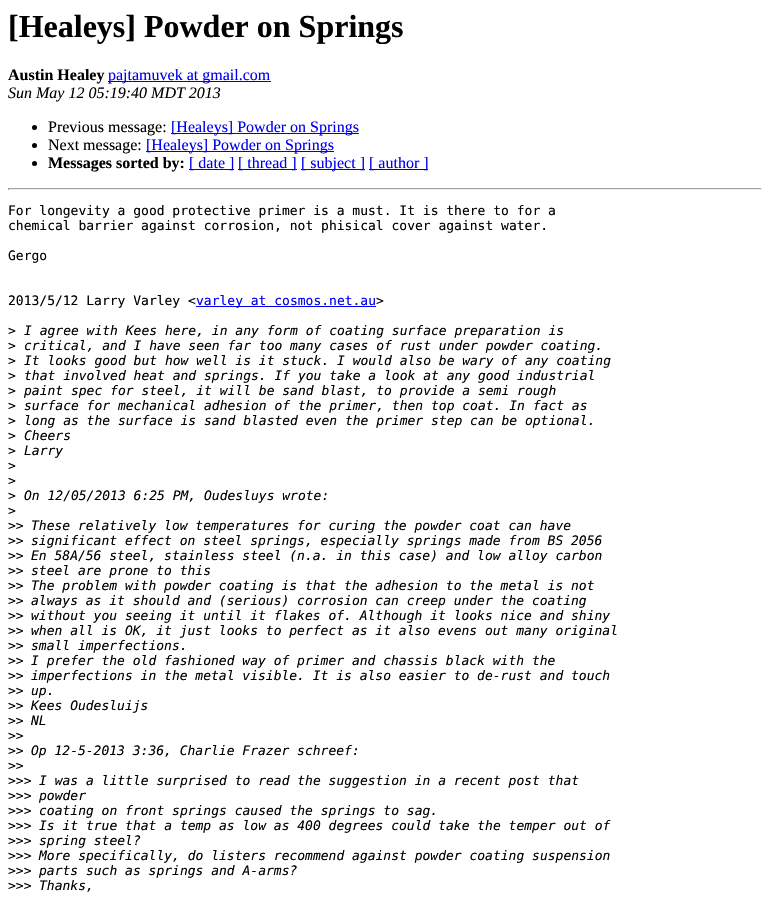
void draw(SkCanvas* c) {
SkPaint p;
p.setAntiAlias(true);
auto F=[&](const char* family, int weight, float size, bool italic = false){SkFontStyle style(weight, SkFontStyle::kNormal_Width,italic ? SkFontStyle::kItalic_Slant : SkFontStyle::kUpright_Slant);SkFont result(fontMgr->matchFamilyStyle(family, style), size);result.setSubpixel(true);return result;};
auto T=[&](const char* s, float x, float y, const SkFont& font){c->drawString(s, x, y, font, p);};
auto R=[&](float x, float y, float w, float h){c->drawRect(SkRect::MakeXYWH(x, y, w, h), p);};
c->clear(0xffffffff);
auto f1 = F("Liberation Serif",700,32);
p.setColor(0xff000000);
T("[Healeys] Powder on Springs",8,37,f1);
auto f2 = F("Liberation Serif",700,16);
T("Austin Healey",8,80,f2);
p.setColor(0xff0000ee);
R(108,81,163,1);
auto f3 = F("Liberation Serif",400,16);
T("pajtamuvek at gmail.com",108,80,f3);
auto f4 = F("Liberation Serif",400,16,true);
p.setColor(0xff000000);
T("Sun May 12 05:19:40 MDT 2013",8,98,f4);
c->drawCircle(34.5,127.5,2.5,p);
T("Previous message:",48,132,f3);
p.setColor(0xff0000ee);
R(171,133,188,1);
T("[Healeys] Powder on Springs",171,132,f3);
p.setColor(0xff000000);
c->drawCircle(34.5,145.5,2.5,p);
T("Next message:",48,150,f3);
p.setColor(0xff0000ee);
R(146,151,188,1);
T("[Healeys] Powder on Springs",146,150,f3);
p.setColor(0xff000000);
c->drawCircle(34.5,163.5,2.5,p);
T("Messages sorted by:",48,168,f2);
p.setColor(0xff0000ee);
R(189,169,45,1);
T("[ date ]",189,168,f3);
R(238,169,59,1);
T("[ thread ]",238,168,f3);
R(301,169,64,1);
T("[ subject ]",301,168,f3);
R(369,169,59,1);
T("[ author ]",369,168,f3);
p.setColor(0xff9f9f9f);
R(8,188,754,1);
p.setColor(0xffeeeeee);
R(761,188,1,2);
R(8,189,754,1);
p.setColor(0xff9f9f9f);
R(8,188,1,2);
auto f5 = F("DejaVu Sans Mono",400,13);
p.setColor(0xff000000);
T("For longevity a good protective primer is a must. It is there to for a",8,215,f5);
T("chemical barrier against corrosion, not phisical cover against water.",8,230,f5);
T("Gergo",8,260,f5);
T("2013/5/12 Larry Varley <",8,305,f5);
p.setColor(0xff0000ee);
R(196,306,180,1);
T("varley at cosmos.net.au",196,305,f5);
p.setColor(0xff000000);
T(">",376,305,f5);
T(">",8,335,f5);
auto f6 = F("DejaVu Sans Mono",400,13,true);
T("I agree with Kees here, in any form of coating surface preparation is",24,335,f6);
T(">",8,350,f5);
T("critical, and I have seen far too many cases of rust under powder coating.",24,350,f6);
T(">",8,365,f5);
T("It looks good but how well is it stuck. I would also be wary of any coating",24,365,f6);
T(">",8,380,f5);
T("that involved heat and springs. If you take a look at any good industrial",24,380,f6);
T(">",8,395,f5);
T("paint spec for steel, it will be sand blast, to provide a semi rough",24,395,f6);
T(">",8,410,f5);
T("surface for mechanical adhesion of the primer, then top coat. In fact as",24,410,f6);
T(">",8,425,f5);
T("long as the surface is sand blasted even the primer step can be optional.",24,425,f6);
T(">",8,440,f5);
T("Cheers",24,440,f6);
T(">",8,455,f5);
T("Larry",24,455,f6);
T(">",8,470,f5);
T(">",8,485,f5);
T(">",8,500,f5);
T("On 12/05/2013 6:25 PM, Oudesluys wrote:",24,500,f6);
T(">",8,515,f5);
T(">>",8,530,f5);
T("These relatively low temperatures for curing the powder coat can have",31,530,f6);
T(">>",8,545,f5);
T("significant effect on steel springs, especially springs made from BS 2056",31,545,f6);
T(">>",8,560,f5);
T("En 58A/56 steel, stainless steel (n.a. in this case) and low alloy carbon",31,560,f6);
T(">>",8,575,f5);
T("steel are prone to this",31,575,f6);
T(">>",8,590,f5);
T("The problem with powder coating is that the adhesion to the metal is not",31,590,f6);
T(">>",8,605,f5);
T("always as it should and (serious) corrosion can creep under the coating",31,605,f6);
T(">>",8,620,f5);
T("without you seeing it until it flakes of. Although it looks nice and shiny",31,620,f6);
T(">>",8,635,f5);
T("when all is OK, it just looks to perfect as it also evens out many original",31,635,f6);
T(">>",8,650,f5);
T("small imperfections.",31,650,f6);
T(">>",8,665,f5);
T("I prefer the old fashioned way of primer and chassis black with the",31,665,f6);
T(">>",8,680,f5);
T("imperfections in the metal visible. It is also easier to de-rust and touch",31,680,f6);
T(">>",8,695,f5);
T("up.",31,695,f6);
T(">>",8,710,f5);
T("Kees Oudesluijs",31,710,f6);
T(">>",8,725,f5);
T("NL",31,725,f6);
T(">>",8,740,f5);
T(">>",8,755,f5);
T("Op 12-5-2013 3:36, Charlie Frazer schreef:",31,755,f6);
T(">>",8,770,f5);
T(">>>",8,785,f5);
T("I was a little surprised to read the suggestion in a recent post that",39,785,f6);
T(">>>",8,800,f5);
T("powder",39,800,f6);
T(">>>",8,815,f5);
T("coating on front springs caused the springs to sag.",39,815,f6);
T(">>>",8,830,f5);
T("Is it true that a temp as low as 400 degrees could take the temper out of",39,830,f6);
T(">>>",8,845,f5);
T("spring steel?",39,845,f6);
T(">>>",8,860,f5);
T("More specifically, do listers recommend against powder coating suspension",39,860,f6);
T(">>>",8,875,f5);
T("parts such as springs and A-arms?",39,875,f6);
T(">>>",8,890,f5);
T("Thanks,",39,890,f6);
}
